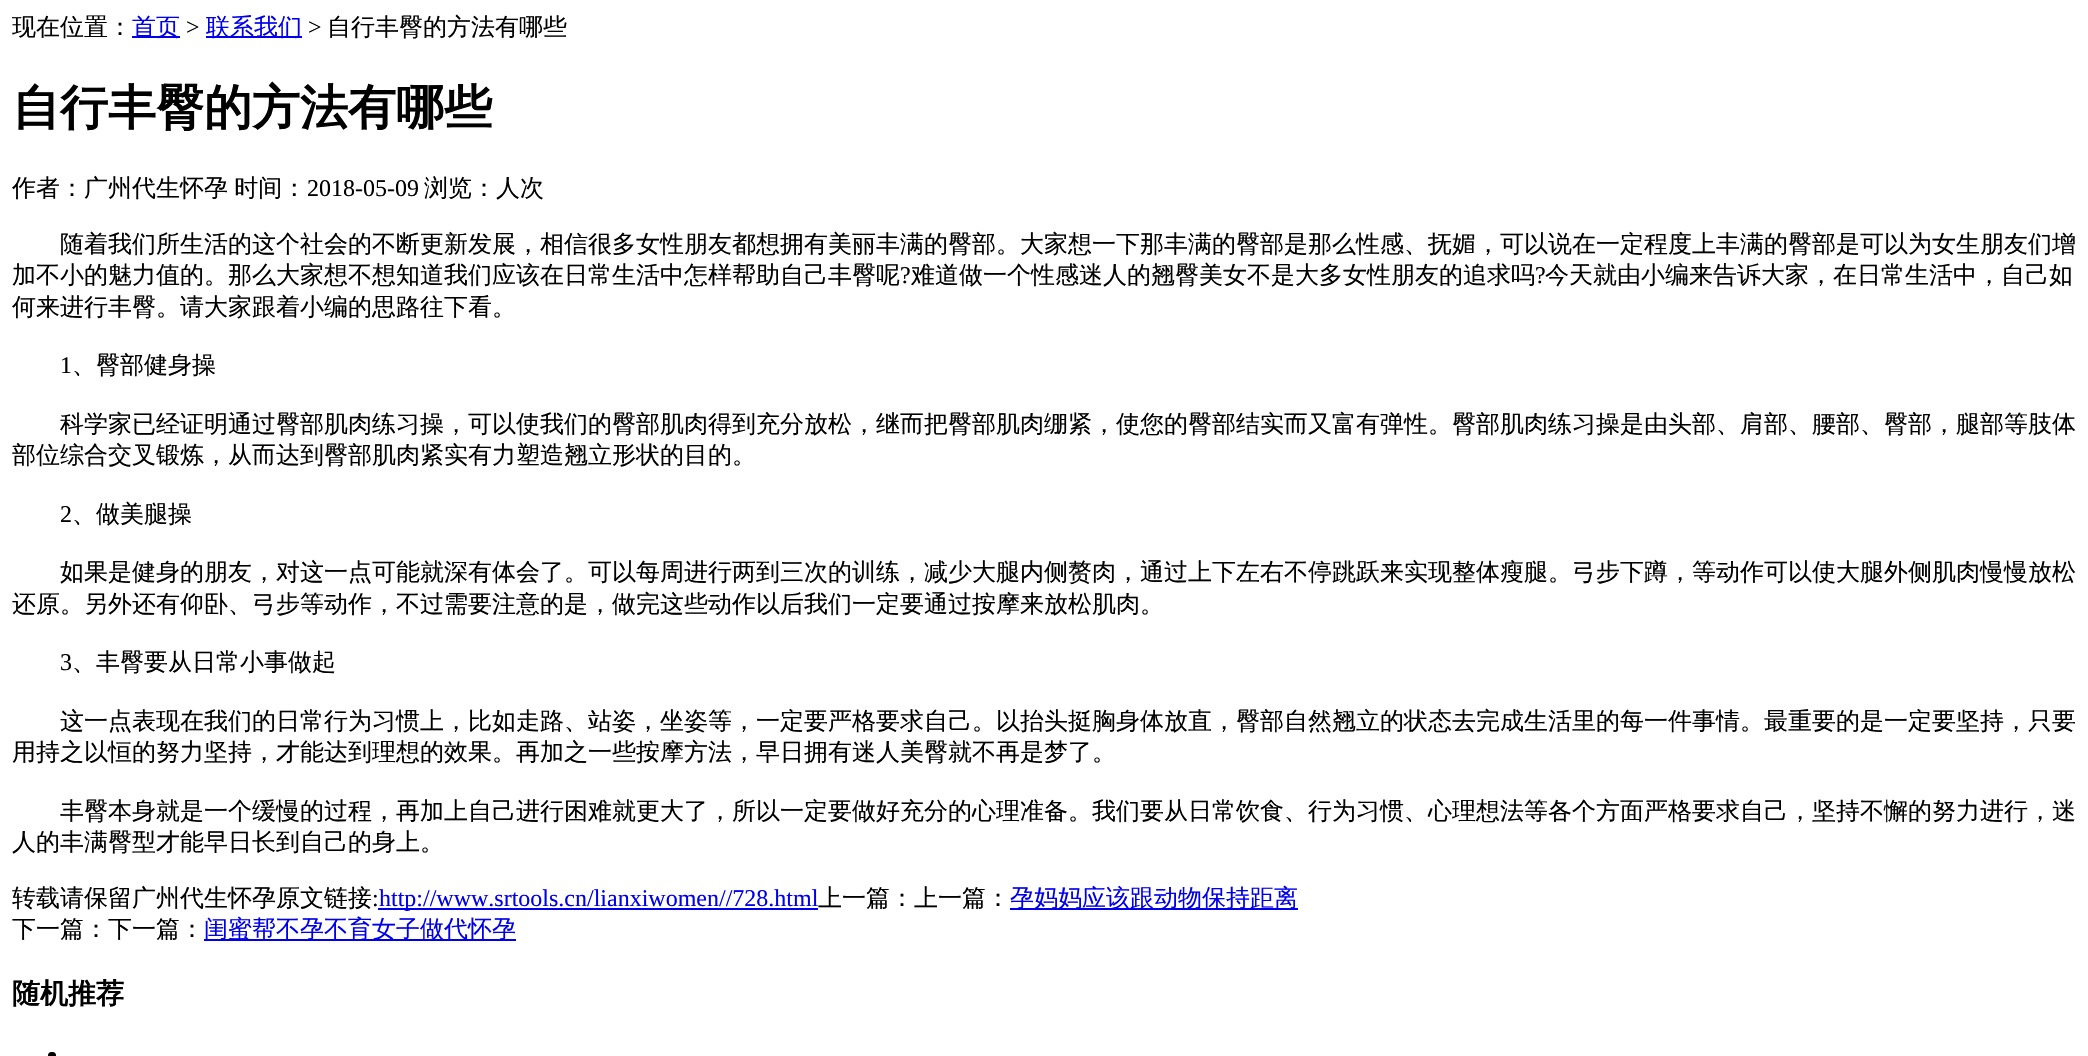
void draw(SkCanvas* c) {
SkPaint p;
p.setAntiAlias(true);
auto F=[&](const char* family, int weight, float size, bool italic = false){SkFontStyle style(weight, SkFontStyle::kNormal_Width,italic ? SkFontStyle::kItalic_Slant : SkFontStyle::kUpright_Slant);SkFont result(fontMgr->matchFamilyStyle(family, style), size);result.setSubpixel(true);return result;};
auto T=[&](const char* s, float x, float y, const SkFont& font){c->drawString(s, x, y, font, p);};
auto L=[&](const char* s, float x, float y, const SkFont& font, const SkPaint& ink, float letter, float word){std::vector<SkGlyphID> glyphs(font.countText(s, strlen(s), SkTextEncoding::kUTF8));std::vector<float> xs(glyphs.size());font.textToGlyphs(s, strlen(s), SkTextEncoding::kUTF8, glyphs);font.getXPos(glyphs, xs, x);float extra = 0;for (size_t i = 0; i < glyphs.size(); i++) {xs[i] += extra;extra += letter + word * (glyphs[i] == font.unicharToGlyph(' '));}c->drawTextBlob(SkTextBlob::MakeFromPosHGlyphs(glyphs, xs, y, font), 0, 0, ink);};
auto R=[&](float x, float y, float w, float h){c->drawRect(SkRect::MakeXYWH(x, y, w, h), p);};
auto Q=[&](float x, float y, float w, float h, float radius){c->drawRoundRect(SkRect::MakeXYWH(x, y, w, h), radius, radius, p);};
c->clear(0xffffffff);
auto f1 = F("WenQuanYi Zen Hei",500,24);
p.setColor(0xff000000);
T("现在位置：",12,35,f1);
p.setColor(0xff0000ee);
R(132,36,48,2);
T("首页",132,35,f1);
auto f2 = F("Liberation Serif",400,24);
p.setColor(0xff000000);
T(">",186,35,f2);
p.setColor(0xff0000ee);
R(206,36,96,2);
T("联系我们",206,35,f1);
p.setColor(0xff000000);
T(">",308,35,f2);
T("自行丰臀的方法有哪些",327,35,f1);
auto f3 = F("WenQuanYi Zen Hei",700,48);
T("自行丰臀的方法有哪些",12,124,f3);
L("作者：广州代生怀孕 时间：",12,196,f1,p,0,-1);
T("2018-05-09",307,196,f2);
T("浏览：人次",424,196,f1);
T("随着我们所生活的这个社会的不断更新发展，相信很多女性朋友都想拥有美丽丰满的臀部。大家想一下那丰满的臀部是那么性感、抚媚，可以说在一定程度上丰满的臀部是可以为女生朋友们增",60,252,f1);
T("加不小的魅力值的。那么大家想不想知道我们应该在日常生活中怎样帮助自己丰臀呢",12,283,f1);
T("?",900,283,f2);
T("难道做一个性感迷人的翘臀美女不是大多女性朋友的追求吗",911,283,f1);
T("?",1535,283,f2);
T("今天就由小编来告诉大家，在日常生活中，自己如",1545,283,f1);
T("何来进行丰臀。请大家跟着小编的思路往下看。",12,315,f1);
T("1",60,373,f2);
T("、臀部健身操",72,373,f1);
T("科学家已经证明通过臀部肌肉练习操，可以使我们的臀部肌肉得到充分放松，继而把臀部肌肉绷紧，使您的臀部结实而又富有弹性。臀部肌肉练习操是由头部、肩部、腰部、臀部，腿部等肢体",60,432,f1);
T("部位综合交叉锻炼，从而达到臀部肌肉紧实有力塑造翘立形状的目的。",12,463,f1);
T("2",60,522,f2);
T("、做美腿操",72,522,f1);
T("如果是健身的朋友，对这一点可能就深有体会了。可以每周进行两到三次的训练，减少大腿内侧赘肉，通过上下左右不停跳跃来实现整体瘦腿。弓步下蹲，等动作可以使大腿外侧肌肉慢慢放松",60,580,f1);
T("还原。另外还有仰卧、弓步等动作，不过需要注意的是，做完这些动作以后我们一定要通过按摩来放松肌肉。",12,612,f1);
T("3",60,670,f2);
T("、丰臀要从日常小事做起",72,670,f1);
T("这一点表现在我们的日常行为习惯上，比如走路、站姿，坐姿等，一定要严格要求自己。以抬头挺胸身体放直，臀部自然翘立的状态去完成生活里的每一件事情。最重要的是一定要坚持，只要",60,729,f1);
T("用持之以恒的努力坚持，才能达到理想的效果。再加之一些按摩方法，早日拥有迷人美臀就不再是梦了。",12,760,f1);
T("丰臀本身就是一个缓慢的过程，再加上自己进行困难就更大了，所以一定要做好充分的心理准备。我们要从日常饮食、行为习惯、心理想法等各个方面严格要求自己，坚持不懈的努力进行，迷",60,819,f1);
T("人的丰满臀型才能早日长到自己的身上。",12,850,f1);
T("转载请保留广州代生怀孕原文链接",12,906,f1);
T(":",372,906,f2);
p.setColor(0xff0000ee);
R(378,908,440,2);
T("http://www.srtools.cn/lianxiwomen//728.html",379,906,f2);
p.setColor(0xff000000);
T("上一篇：上一篇：",818,906,f1);
p.setColor(0xff0000ee);
R(1010,908,288,2);
T("孕妈妈应该跟动物保持距离",1010,906,f1);
p.setColor(0xff000000);
T("下一篇：下一篇：",12,937,f1);
p.setColor(0xff0000ee);
R(204,939,312,2);
T("闺蜜帮不孕不育女子做代怀孕",204,937,f1);
auto f4 = F("WenQuanYi Zen Hei",700,28);
p.setColor(0xff000000);
T("随机推荐",12,1003,f4);
Q(48,1052,8,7,3.5);
}
